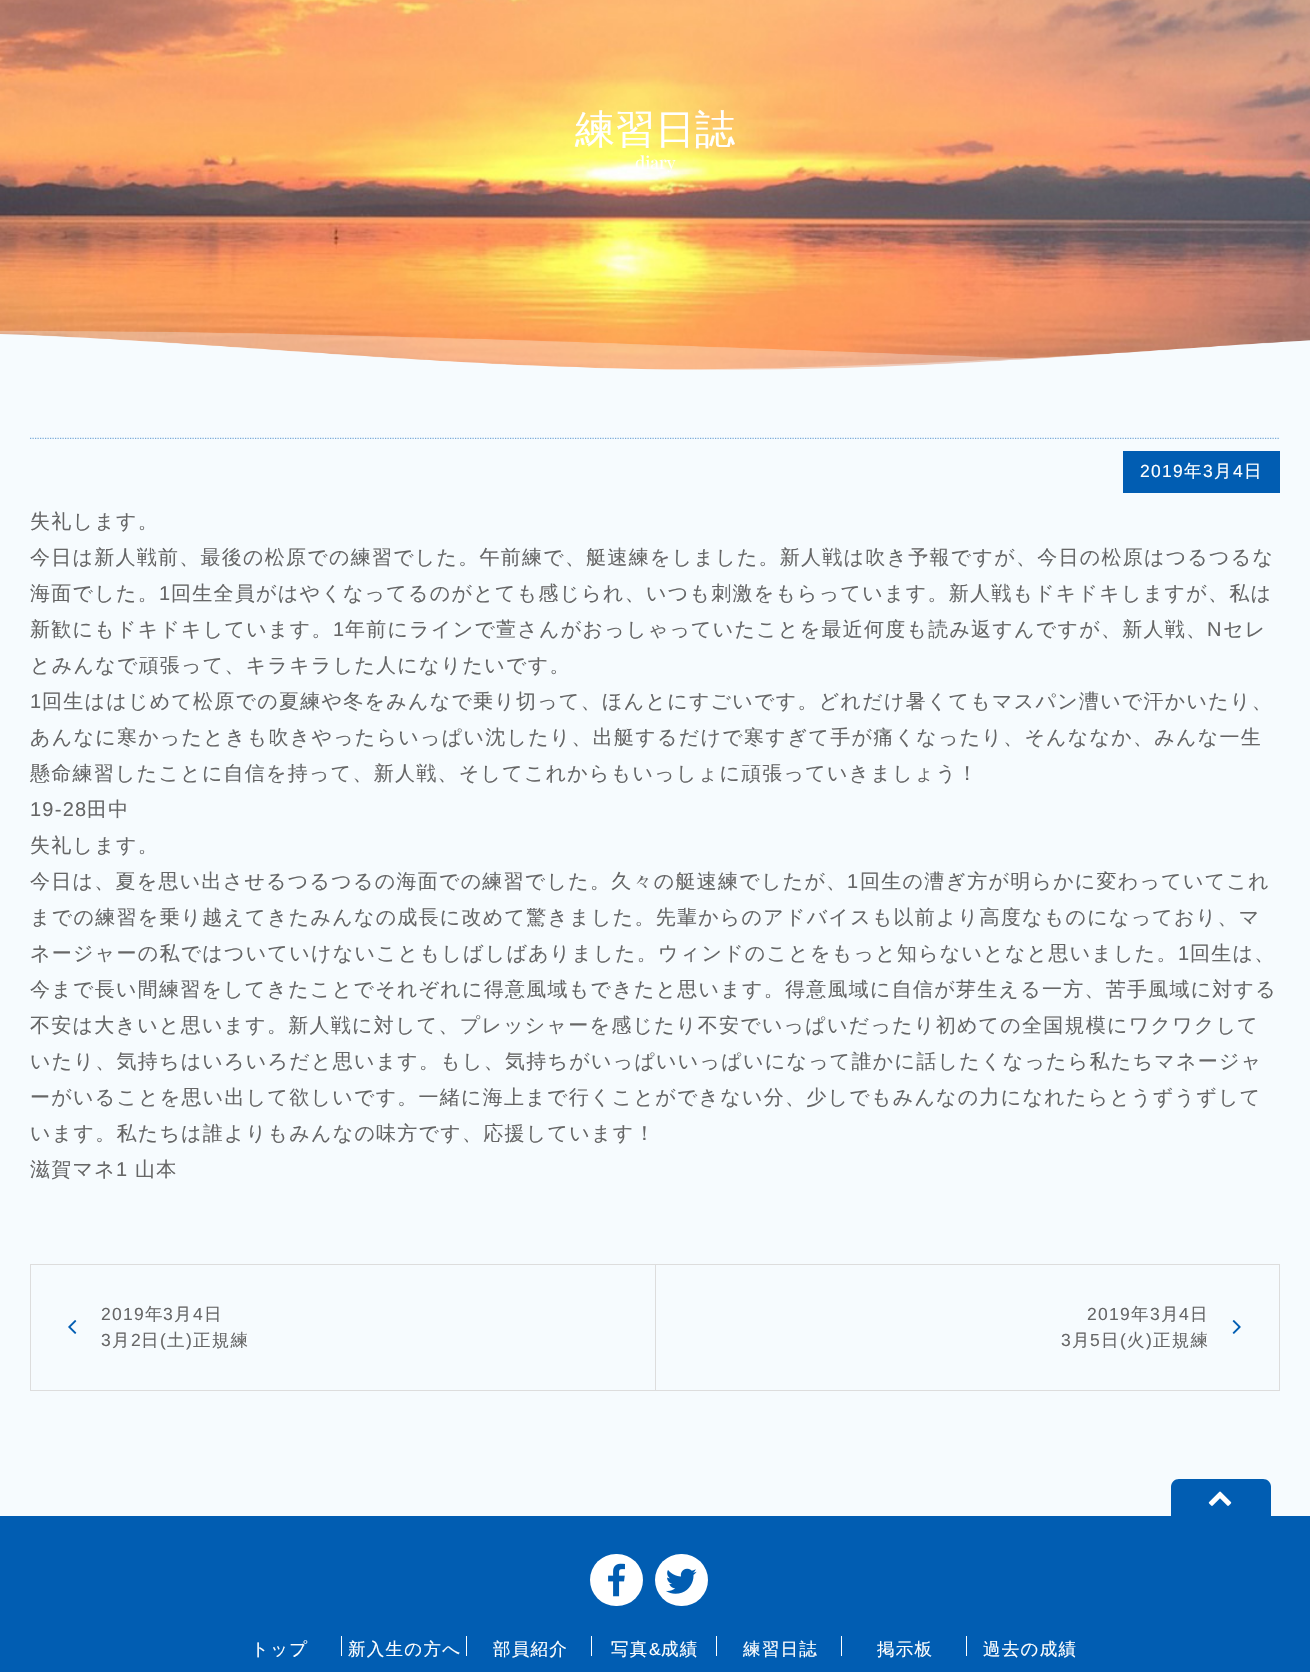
void draw(SkCanvas* c) {
SkPaint p;
p.setAntiAlias(true);
auto F=[&](const char* family, int weight, float size, bool italic = false){SkFontStyle style(weight, SkFontStyle::kNormal_Width,italic ? SkFontStyle::kItalic_Slant : SkFontStyle::kUpright_Slant);SkFont result(fontMgr->matchFamilyStyle(family, style), size);result.setSubpixel(true);return result;};
auto T=[&](const char* s, float x, float y, const SkFont& font){c->drawString(s, x, y, font, p);};
auto L=[&](const char* s, float x, float y, const SkFont& font, const SkPaint& ink, float letter, float word){std::vector<SkGlyphID> glyphs(font.countText(s, strlen(s), SkTextEncoding::kUTF8));std::vector<float> xs(glyphs.size());font.textToGlyphs(s, strlen(s), SkTextEncoding::kUTF8, glyphs);font.getXPos(glyphs, xs, x);float extra = 0;for (size_t i = 0; i < glyphs.size(); i++) {xs[i] += extra;extra += letter + word * (glyphs[i] == font.unicharToGlyph(' '));}c->drawTextBlob(SkTextBlob::MakeFromPosHGlyphs(glyphs, xs, y, font), 0, 0, ink);};
auto R=[&](float x, float y, float w, float h){c->drawRect(SkRect::MakeXYWH(x, y, w, h), p);};
auto Q=[&](float x, float y, float w, float h, float radius){c->drawRoundRect(SkRect::MakeXYWH(x, y, w, h), radius, radius, p);};
auto I=[&](const char* path, float x, float y, float w, float h){auto image = SkImages::DeferredFromEncodedData(SkData::MakeFromFileName(path));c->drawImageRect(image, SkRect::MakeXYWH(x, y, w, h), SkSamplingOptions());};
auto P=[&](const char* data, bool evenOdd = false){SkPath result = *SkParsePath::FromSVGString(data);if (evenOdd) result.setFillType(SkPathFillType::kEvenOdd);return result;};
c->clear(0xfff6fbfe);
I("1.png",0,0,1310,370);
auto f1 = F("WenQuanYi Zen Hei",500,40);
p.setColor(0xffffffff);
T("練習日誌",575,143,f1);
auto f2 = F("Playfair Display",400,17.5);
T("diary",635,169,f2);
p.setStroke(true);
p.setStrokeWidth(1.2);
p.setColor(0xff015db2);
p.setPathEffect(SkDashPathEffect::Make({{1.25f,1.25f}}, 0));
c->drawPath(P("M30 438h1250"),p);
p.setPathEffect(nullptr);
I("2.png",0,330,1310,108);
p.setStroke(false);
R(1123,451,157,42);
auto f3 = F("Liberation Sans",400,17.5);
p.setColor(0xffffffff);
L("2019",1140,477,f3,p,1.25,0);
auto f4 = F("WenQuanYi Zen Hei",500,17.5);
L("年",1184,477,f4,p,1.25,0);
L("3",1203,477,f3,p,1.25,0);
L("月",1214,477,f4,p,1.25,0);
L("4",1233,477,f3,p,1.25,0);
L("日",1244,477,f4,p,1.25,0);
auto f5 = F("WenQuanYi Zen Hei",500,20);
p.setColor(0xff666666);
L("失礼します。",30,528,f5,p,1.25,0);
L("今日は新人戦前、最後の松原での練習でした。午前練で、艇速練をしました。新人戦は吹き予報ですが、今日の松原はつるつるな",30,564,f5,p,1.25,0);
L("海面でした。",30,600,f5,p,1.25,0);
auto f6 = F("Liberation Sans",400,20);
L("1",159,600,f6,p,1.25,0);
L("回生全員がはやくなってるのがとても感じられ、いつも刺激をもらっています。新人戦もドキドキしますが、私は",171,600,f5,p,1.25,0);
L("新歓にもドキドキしています。",30,636,f5,p,1.25,0);
L("1",333,636,f6,p,1.25,0);
L("年前にラインで萱さんがおっしゃっていたことを最近何度も読み返すんですが、新人戦、",345,636,f5,p,1.25,0);
L("N",1207,636,f6,p,1.25,0);
L("セレ",1223,636,f5,p,1.25,0);
L("とみんなで頑張って、キラキラした人になりたいです。",30,672,f5,p,1.25,0);
L("1",30,708,f6,p,1.25,0);
L("回生ははじめて松原での夏練や冬をみんなで乗り切って、ほんとにすごいです。どれだけ暑くてもマスパン漕いで汗かいたり、",42,708,f5,p,1.25,0);
L("あんなに寒かったときも吹きやったらいっぱい沈したり、出艇するだけで寒すぎて手が痛くなったり、そんななか、みんな一生",30,744,f5,p,1.25,0);
L("懸命練習したことに自信を持って、新人戦、そしてこれからもいっしょに頑張っていきましょう！",30,780,f5,p,1.25,0);
L("19-28",30,816,f6,p,1.25,0);
L("田中",87,816,f5,p,1.25,0);
L("失礼します。",30,852,f5,p,1.25,0);
L("今日は、夏を思い出させるつるつるの海面での練習でした。久々の艇速練でしたが、",30,888,f5,p,1.25,0);
L("1",847,888,f6,p,1.25,0);
L("回生の漕ぎ方が明らかに変わっていてこれ",860,888,f5,p,1.25,0);
L("までの練習を乗り越えてきたみんなの成長に改めて驚きました。先輩からのアドバイスも以前より高度なものになっており、マ",30,924,f5,p,1.25,0);
L("ネージャーの私ではついていけないこともしばしばありました。ウィンドのことをもっと知らないとなと思いました。",30,960,f5,p,1.25,0);
L("1",1178,960,f6,p,1.25,0);
L("回生は、",1190,960,f5,p,1.25,0);
L("今まで長い間練習をしてきたことでそれぞれに得意風域もできたと思います。得意風域に自信が芽生える一方、苦手風域に対する",30,996,f5,p,1.25,0);
L("不安は大きいと思います。新人戦に対して、プレッシャーを感じたり不安でいっぱいだったり初めての全国規模にワクワクして",30,1032,f5,p,1.25,0);
L("いたり、気持ちはいろいろだと思います。もし、気持ちがいっぱいいっぱいになって誰かに話したくなったら私たちマネージャ",30,1068,f5,p,1.25,0);
L("ーがいることを思い出して欲しいです。一緒に海上まで行くことができない分、少しでもみんなの力になれたらとうずうずして",30,1104,f5,p,1.25,0);
L("います。私たちは誰よりもみんなの味方です、応援しています！",30,1140,f5,p,1.25,0);
L("滋賀マネ",30,1176,f5,p,1.25,0);
L("1",116,1176,f6,p,1.25,0);
L("山本",135,1176,f5,p,1.25,0);
p.setStroke(true);
p.setStrokeWidth(1);
p.setColor(0xffdddddd);
c->drawRect(SkRect::MakeXYWH(30.5,1264.5,1249,126),p);
p.setStroke(false);
R(655,1265,1,125);
I("3.png",68,1320,9,14);
p.setColor(0xff666666);
L("2019",101,1320,f3,p,1.25,0);
L("年",145,1320,f4,p,1.25,0);
L("3",163,1320,f3,p,1.25,0);
L("月",174,1320,f4,p,1.25,0);
L("4",193,1320,f3,p,1.25,0);
L("日",204,1320,f4,p,1.25,0);
L("3",101,1346,f3,p,1.25,0);
L("月",112,1346,f4,p,1.25,0);
L("2",131,1346,f3,p,1.25,0);
L("日",141,1346,f4,p,1.25,0);
L("(",160,1346,f3,p,1.25,0);
L("土",167,1346,f4,p,1.25,0);
L(")",186,1346,f3,p,1.25,0);
L("正規練",193,1346,f4,p,1.25,0);
L("2019",1087,1320,f3,p,1.25,0);
L("年",1131,1320,f4,p,1.25,0);
L("3",1150,1320,f3,p,1.25,0);
L("月",1161,1320,f4,p,1.25,0);
L("4",1179,1320,f3,p,1.25,0);
L("日",1190,1320,f4,p,1.25,0);
L("3",1061,1346,f3,p,1.25,0);
L("月",1072,1346,f4,p,1.25,0);
L("5",1090,1346,f3,p,1.25,0);
L("日",1101,1346,f4,p,1.25,0);
L("(",1120,1346,f3,p,1.25,0);
L("火",1127,1346,f4,p,1.25,0);
L(")",1146,1346,f3,p,1.25,0);
L("正規練",1153,1346,f4,p,1.25,0);
I("4.png",1232,1320,9,14);
p.setColor(0xff015db2);
R(0,1516,1310,156);
c->drawPath(P("M1179 1479h84c4.5 0 8 3.5 8 8v36h-100v-36c0-4.5 3.5-8 8-8z"),p);
I("5.png",1208,1491,24,15);
p.setColor(0xffffffff);
Q(590,1554,53,52,26);
I("6.png",608,1563,17,34);
Q(655,1554,53,52,26);
I("7.png",666,1568,31,26);
L("トップ",251,1655,f4,p,1.25,0);
R(341,1636,1,20);
L("新入生の方へ",348,1655,f4,p,1.25,0);
R(466,1636,1,20);
L("部員紹介",493,1655,f4,p,1.25,0);
R(591,1636,1,20);
L("写真",611,1655,f4,p,1.25,0);
L("&",649,1655,f3,p,1.25,0);
L("成績",661,1655,f4,p,1.25,0);
R(716,1636,1,20);
L("練習日誌",743,1655,f4,p,1.25,0);
R(841,1636,1,20);
L("掲示板",877,1655,f4,p,1.25,0);
R(966,1636,1,20);
L("過去の成績",983,1655,f4,p,1.25,0);
}
